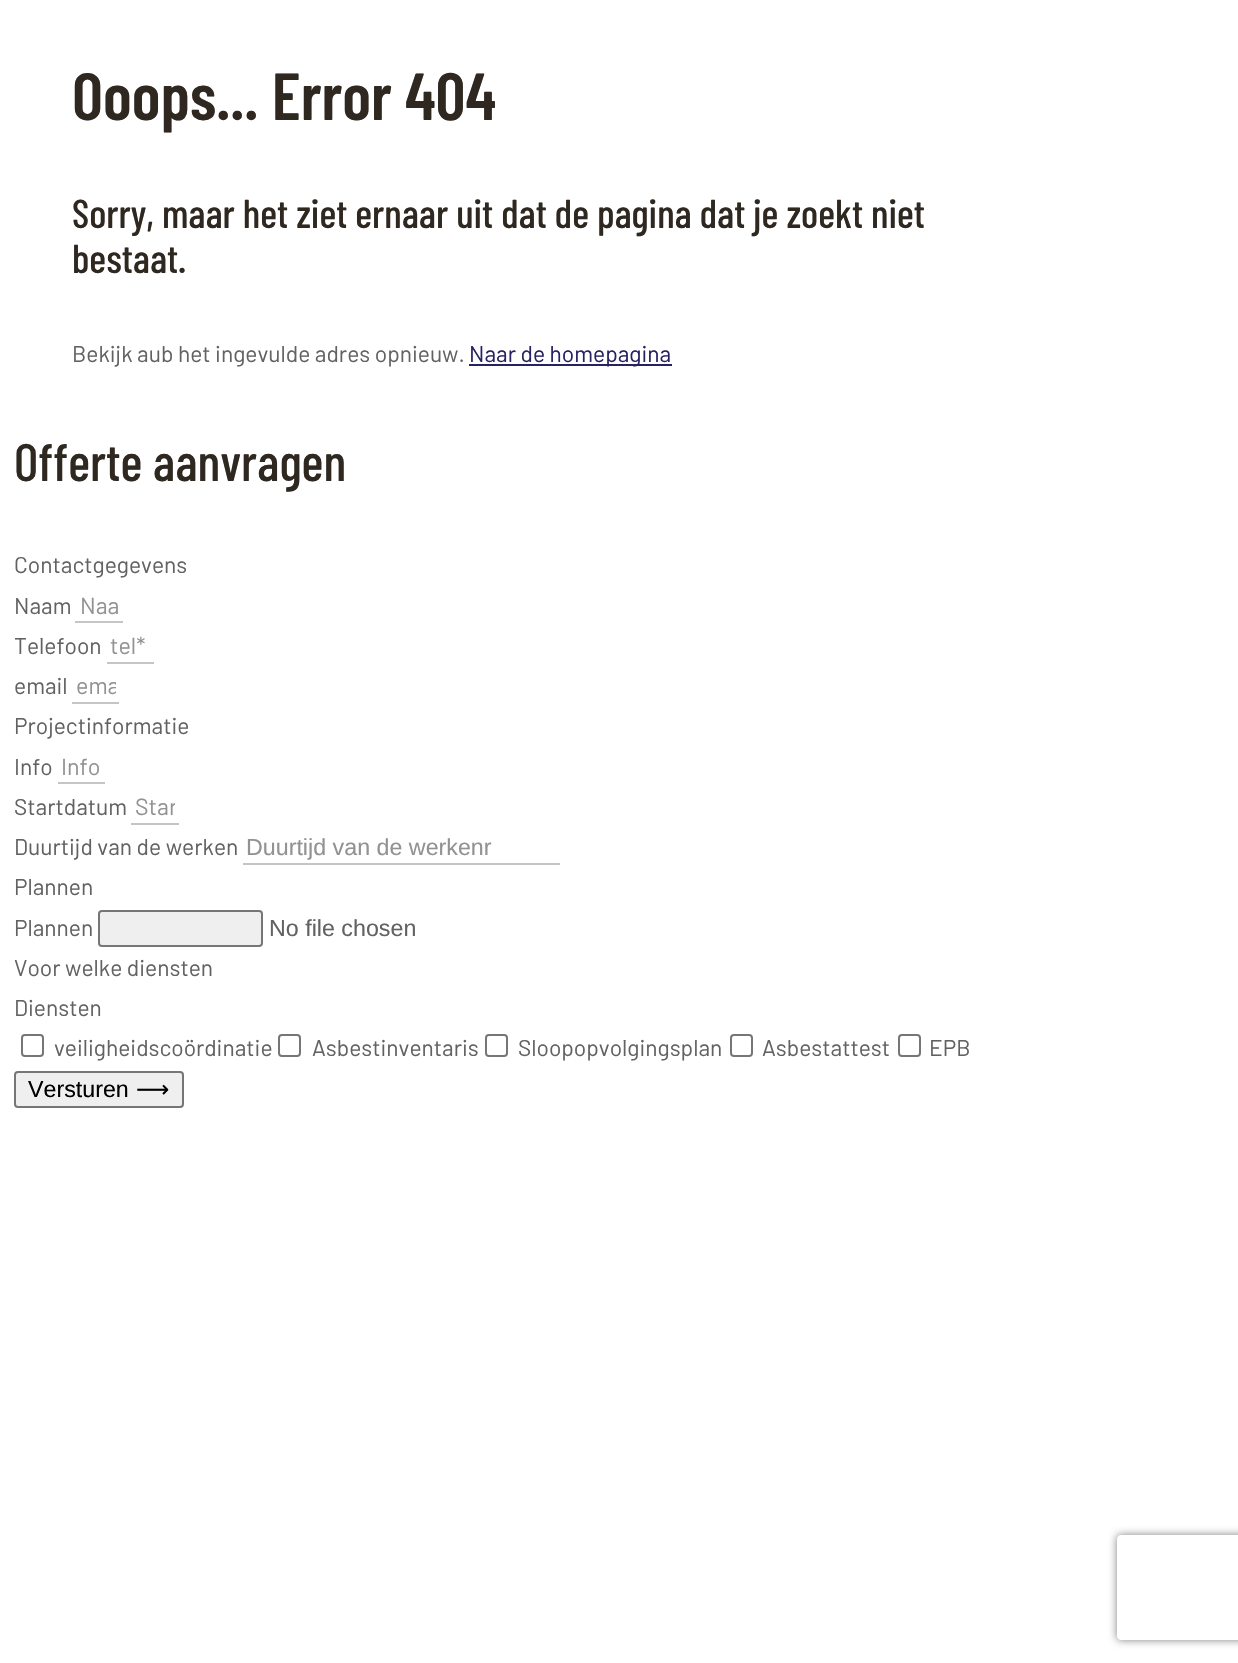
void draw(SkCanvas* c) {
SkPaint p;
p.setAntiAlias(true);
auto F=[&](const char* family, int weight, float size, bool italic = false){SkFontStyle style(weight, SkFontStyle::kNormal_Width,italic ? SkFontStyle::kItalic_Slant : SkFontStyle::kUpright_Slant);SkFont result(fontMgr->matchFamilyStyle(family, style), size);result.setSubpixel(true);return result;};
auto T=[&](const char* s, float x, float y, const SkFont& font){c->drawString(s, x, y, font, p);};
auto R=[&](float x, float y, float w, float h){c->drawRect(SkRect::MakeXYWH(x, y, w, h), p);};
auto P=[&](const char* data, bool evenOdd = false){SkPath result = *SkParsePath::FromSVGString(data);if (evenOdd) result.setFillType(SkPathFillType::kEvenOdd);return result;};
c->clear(0xffffffff);
auto f1 = F("Barlow Condensed",600,66.5);
p.setColor(0xff2e2821);
T("Ooops... Error 404",72,120,f1);
auto f2 = F("Barlow Condensed",500,40.25);
T("Sorry, maar het ziet ernaar uit dat de pagina dat je zoekt niet",72,228,f2);
T("bestaat.",72,273,f2);
auto f3 = F("Barlow",400,22.75);
p.setColor(0xff626262);
T("Bekijk aub het ingevulde adres opnieuw.",72,362,f3);
p.setColor(0xff262262);
R(469,364,203,2);
T("Naar de homepagina",469,362,f3);
auto f4 = F("Barlow Condensed",500,52.5);
p.setColor(0xff2e2821);
T("Offerte aanvragen",14,481,f4);
p.setColor(0xff626262);
T("Contactgegevens",14,573,f3);
T("Naam",14,614,f3);
p.setColor(0xffc5c5c5);
R(75,621,48,2);
auto f5 = F("Barlow",400,23.25);
p.setColor(0xff929292);
T("Naa",80,614,f5);
p.setColor(0xff626262);
T("Telefoon",14,654,f3);
p.setColor(0xffc5c5c5);
R(107,662,47,2);
p.setColor(0xff929292);
T("tel*",110,654,f5);
p.setColor(0xff626262);
T("email",14,694,f3);
p.setColor(0xffc5c5c5);
R(72,702,47,2);
c->save();
c->clipRect(SkRect::MakeXYWH(75,672,41,28));
p.setColor(0xff929292);
T("ema",76,694,f5);
c->restore();
p.setColor(0xff626262);
T("Projectinformatie",14,734,f3);
T("Info",14,775,f3);
p.setColor(0xffc5c5c5);
R(58,782,47,2);
p.setColor(0xff929292);
T("Info",61,775,f5);
p.setColor(0xff626262);
T("Startdatum",14,815,f3);
p.setColor(0xffc5c5c5);
R(131,823,48,2);
c->save();
c->clipRect(SkRect::MakeXYWH(135,793,40,28));
p.setColor(0xff929292);
T("Star",135,815,f5);
c->restore();
p.setColor(0xff626262);
T("Duurtijd van de werken",14,855,f3);
p.setColor(0xffc5c5c5);
R(243,863,317,2);
auto f6 = F("Liberation Sans",400,23.25);
p.setColor(0xff929292);
T("Duurtijd van de werkenr",246,855,f6);
p.setColor(0xff626262);
T("Plannen",14,895,f3);
T("Plannen",14,936,f3);
p.setColor(0xffefefef);
c->drawRoundRect(SkRect::MakeXYWH(99,911,163,35),3,3,p);
p.setStroke(true);
p.setStrokeWidth(2);
p.setColor(0xff767676);
c->drawRoundRect(SkRect::MakeXYWH(99,911,163,35),3,3,p);
p.setStroke(false);
p.setColor(0xff626262);
T("No file chosen",269,936,f6);
T("Voor welke diensten",14,976,f3);
T("Diensten",14,1016,f3);
p.setStroke(true);
p.setColor(0xff767676);
c->drawRoundRect(SkRect::MakeXYWH(22,1035,21,21),3,3,p);
p.setStroke(false);
p.setColor(0xff626262);
T("veiligheidscoördinatie",54,1056,f3);
p.setStroke(true);
p.setColor(0xff767676);
c->drawRoundRect(SkRect::MakeXYWH(279,1035,21,21),3,3,p);
p.setStroke(false);
p.setColor(0xff626262);
T("Asbestinventaris",312,1056,f3);
p.setStroke(true);
p.setColor(0xff767676);
c->drawRoundRect(SkRect::MakeXYWH(486,1035,21,21),3,3,p);
p.setStroke(false);
p.setColor(0xff626262);
T("Sloopopvolgingsplan",518,1056,f3);
p.setStroke(true);
p.setColor(0xff767676);
c->drawRoundRect(SkRect::MakeXYWH(731,1035,21,21),3,3,p);
p.setStroke(false);
p.setColor(0xff626262);
T("Asbestattest",762,1056,f3);
p.setStroke(true);
p.setColor(0xff767676);
c->drawRoundRect(SkRect::MakeXYWH(899,1035,21,21),3,3,p);
p.setStroke(false);
p.setColor(0xff626262);
T("EPB",929,1056,f3);
p.setColor(0xffefefef);
c->drawRoundRect(SkRect::MakeXYWH(15,1072,168,35),3,3,p);
p.setStroke(true);
p.setColor(0xff767676);
c->drawRoundRect(SkRect::MakeXYWH(15,1072,168,35),3,3,p);
p.setStroke(false);
p.setColor(0xff000000);
T("Versturen",28,1097,f6);
auto f7 = F("DejaVu Sans",400,23.25);
T("⟶",136,1097,f7);
c->save();
c->clipPath(P("M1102 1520h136v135h-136zm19 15h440c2 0 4 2 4 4v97c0 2-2 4-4 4h-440c-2 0-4-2-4-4v-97c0-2 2-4 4-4z",true),true);
p.setColor(0xff808080);
p.setMaskFilter(SkMaskFilter::MakeBlur(kNormal_SkBlurStyle, 4.5));
c->drawRoundRect(SkRect::MakeXYWH(1117,1535,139,105),4,4,p);
p.setMaskFilter(nullptr);
c->restore();
}
